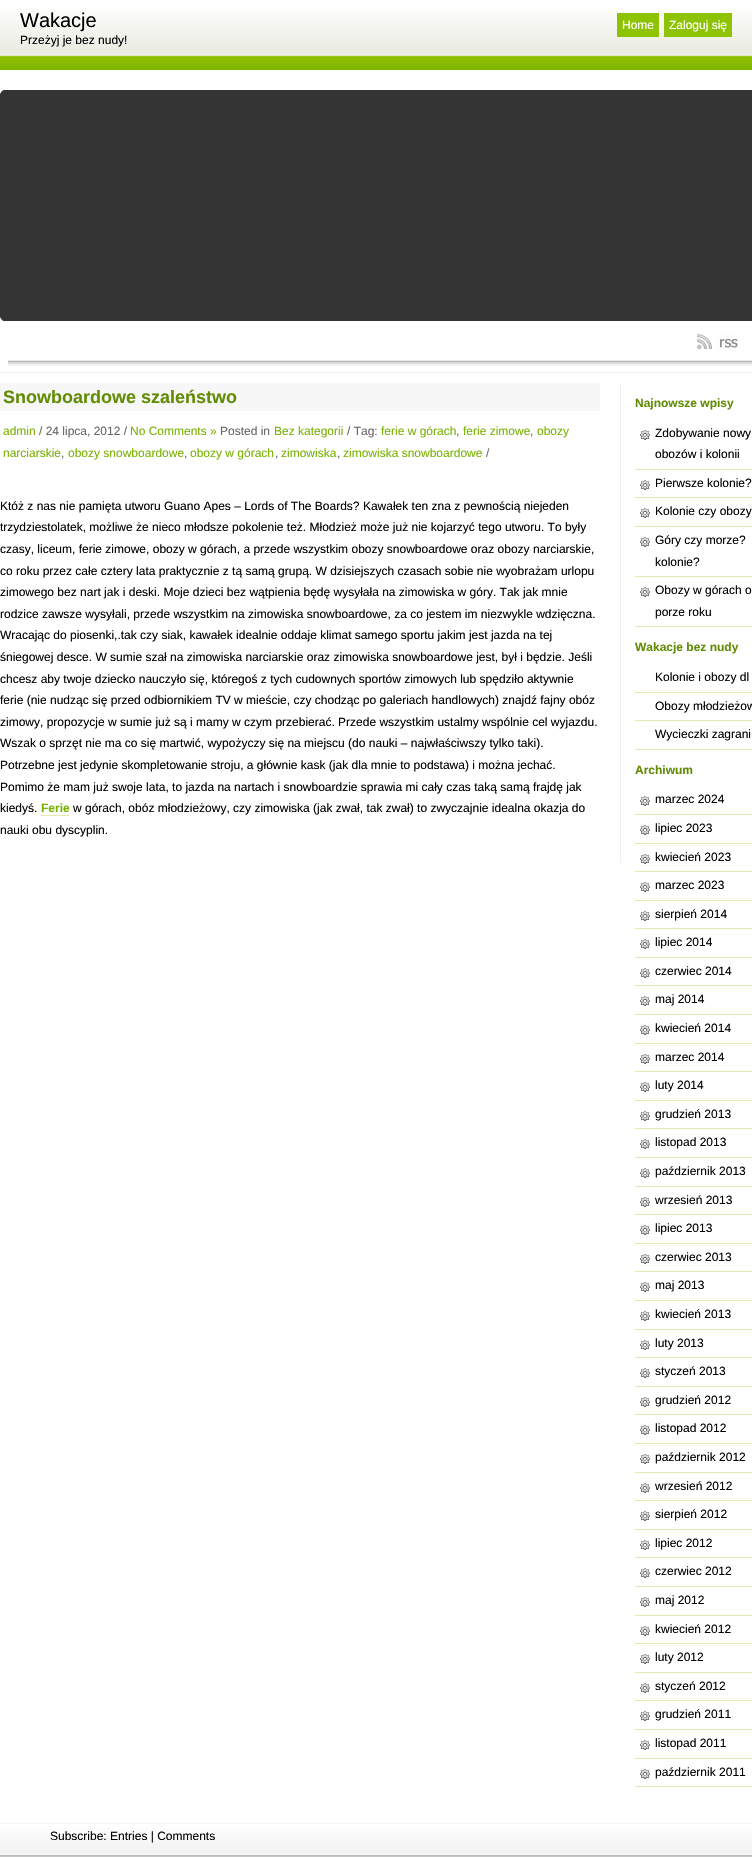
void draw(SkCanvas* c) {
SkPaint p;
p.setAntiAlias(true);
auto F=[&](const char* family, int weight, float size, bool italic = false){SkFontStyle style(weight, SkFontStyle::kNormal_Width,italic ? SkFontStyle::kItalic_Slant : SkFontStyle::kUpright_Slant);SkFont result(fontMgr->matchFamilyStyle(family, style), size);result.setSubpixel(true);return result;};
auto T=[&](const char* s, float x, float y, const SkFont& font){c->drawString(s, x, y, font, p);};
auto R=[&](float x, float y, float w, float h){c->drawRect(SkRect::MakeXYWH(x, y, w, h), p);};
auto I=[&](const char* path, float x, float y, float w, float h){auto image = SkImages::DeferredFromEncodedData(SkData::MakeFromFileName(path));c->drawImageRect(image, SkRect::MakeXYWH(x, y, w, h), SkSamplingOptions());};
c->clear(0xffffffff);
I("1.png",0,9,752,61);
auto f1 = F("Liberation Sans",400,20);
p.setColor(0xff000000);
T("Wakacje",20,27,f1);
auto f2 = F("Liberation Sans",400,12);
T("Przeżyj je bez nudy!",20,44,f2);
p.setColor(0xff8ec304);
R(617,13,42,24);
p.setColor(0xffffffff);
T("Home",622,29,f2);
p.setColor(0xff8ec304);
R(664,13,68,24);
p.setColor(0xffffffff);
T("Zaloguj się",669,29,f2);
p.setColor(0xff343434);
R(0,90,752,231);
I("2.png",0,90,4,4);
I("3.png",0,317,4,4);
I("4.png",8,360,744,6);
I("5.png",697,334,41,15);
p.setColor(0xffeeeeee);
R(0,372,752,1);
R(620,383,1,480);
p.setColor(0xfff7f7f7);
R(0,383,600,28);
auto f3 = F("Liberation Sans",700,18);
p.setColor(0xff618c04);
T("Snowboardowe szaleństwo",3,403,f3);
p.setColor(0xff7ab203);
T("admin",3,435,f2);
p.setColor(0xff666666);
T("/ 24 lipca, 2012 /",39,435,f2);
p.setColor(0xff7ab203);
T("No Comments »",130,435,f2);
p.setColor(0xff666666);
T("Posted in",220,435,f2);
p.setColor(0xff7ab203);
T("Bez kategorii",274,435,f2);
p.setColor(0xff666666);
T("/ Tag:",347,435,f2);
p.setColor(0xff7ab203);
T("ferie w górach",381,435,f2);
p.setColor(0xff666666);
T(",",456,435,f2);
p.setColor(0xff7ab203);
T("ferie zimowe",463,435,f2);
p.setColor(0xff666666);
T(",",530,435,f2);
p.setColor(0xff7ab203);
T("obozy",537,435,f2);
T("narciarskie",3,457,f2);
p.setColor(0xff666666);
T(",",61,457,f2);
p.setColor(0xff7ab203);
T("obozy snowboardowe",68,457,f2);
p.setColor(0xff666666);
T(",",184,457,f2);
p.setColor(0xff7ab203);
T("obozy w górach",190,457,f2);
p.setColor(0xff666666);
T(",",275,457,f2);
p.setColor(0xff7ab203);
T("zimowiska",281,457,f2);
p.setColor(0xff666666);
T(",",337,457,f2);
p.setColor(0xff7ab203);
T("zimowiska snowboardowe",343,457,f2);
p.setColor(0xff666666);
T("/",486,457,f2);
p.setColor(0xff000000);
T("Któż z nas nie pamięta utworu Guano Apes – Lords of The Boards? Kawałek ten zna z pewnością niejeden",0,510,f2);
T("trzydziestolatek, możliwe że nieco młodsze pokolenie też. Młodzież może już nie kojarzyć tego utworu. To były",0,531,f2);
T("czasy, liceum, ferie zimowe, obozy w górach, a przede wszystkim obozy snowboardowe oraz obozy narciarskie,",0,553,f2);
T("co roku przez całe cztery lata praktycznie z tą samą grupą. W dzisiejszych czasach sobie nie wyobrażam urlopu",0,575,f2);
T("zimowego bez nart jak i deski. Moje dzieci bez wątpienia będę wysyłała na zimowiska w góry. Tak jak mnie",0,596,f2);
T("rodzice zawsze wysyłali, przede wszystkim na zimowiska snowboardowe, za co jestem im niezwykle wdzięczna.",0,618,f2);
T("Wracając do piosenki,.tak czy siak, kawałek idealnie oddaje klimat samego sportu jakim jest jazda na tej",0,639,f2);
T("śniegowej desce. W sumie szał na zimowiska narciarskie oraz zimowiska snowboardowe jest, był i będzie. Jeśli",0,661,f2);
T("chcesz aby twoje dziecko nauczyło się, któregoś z tych cudownych sportów zimowych lub spędziło aktywnie",0,683,f2);
T("ferie (nie nudząc się przed odbiornikiem TV w mieście, czy chodząc po galeriach handlowych) znajdź fajny obóz",0,704,f2);
T("zimowy, propozycje w sumie już są i mamy w czym przebierać. Przede wszystkim ustalmy wspólnie cel wyjazdu.",0,726,f2);
T("Wszak o sprzęt nie ma co się martwić, wypożyczy się na miejscu (do nauki – najwłaściwszy tylko taki).",0,747,f2);
T("Potrzebne jest jedynie skompletowanie stroju, a głównie kask (jak dla mnie to podstawa) i można jechać.",0,769,f2);
T("Pomimo że mam już swoje lata, to jazda na nartach i snowboardzie sprawia mi cały czas taką samą frajdę jak",0,791,f2);
T("kiedyś.",0,812,f2);
auto f4 = F("Liberation Sans",700,12);
p.setColor(0xff7ab203);
T("Ferie",41,812,f4);
p.setColor(0xffdbebb1);
R(41,815,28,1);
p.setColor(0xff000000);
T("w górach, obóz młodzieżowy, czy zimowiska (jak zwał, tak zwał) to zwyczajnie idealna okazja do",73,812,f2);
T("nauki obu dyscyplin.",0,834,f2);
p.setColor(0xff618c04);
T("Najnowsze wpisy",635,407,f4);
I("6.png",640,430,10,10);
p.setColor(0xffdbebb1);
R(635,469,117,1);
p.setColor(0xff000000);
T("Zdobywanie nowy",655,437,f2);
T("obozów i kolonii",655,458,f2);
I("6.png",640,480,10,10);
p.setColor(0xffdbebb1);
R(635,497,117,1);
p.setColor(0xff000000);
T("Pierwsze kolonie?",655,487,f2);
I("6.png",640,508,10,10);
p.setColor(0xffdbebb1);
R(635,526,117,1);
p.setColor(0xff000000);
T("Kolonie czy obozy",655,515,f2);
I("6.png",640,537,10,10);
p.setColor(0xffdbebb1);
R(635,576,117,1);
p.setColor(0xff000000);
T("Góry czy morze?",655,544,f2);
T("kolonie?",655,566,f2);
I("6.png",640,587,10,10);
p.setColor(0xffdbebb1);
R(635,626,117,1);
p.setColor(0xff000000);
T("Obozy w górach o",655,594,f2);
T("porze roku",655,616,f2);
p.setColor(0xff618c04);
T("Wakacje bez nudy",635,651,f4);
p.setColor(0xffdbebb1);
R(635,692,117,1);
p.setColor(0xff000000);
T("Kolonie i obozy dl",655,681,f2);
p.setColor(0xffdbebb1);
R(635,720,117,1);
p.setColor(0xff000000);
T("Obozy młodzieżow",655,710,f2);
p.setColor(0xffdbebb1);
R(635,749,117,1);
p.setColor(0xff000000);
T("Wycieczki zagrani",655,738,f2);
p.setColor(0xff618c04);
T("Archiwum",635,774,f4);
I("6.png",640,796,10,10);
p.setColor(0xffdbebb1);
R(635,814,117,1);
p.setColor(0xff000000);
T("marzec 2024",655,803,f2);
I("6.png",640,825,10,10);
p.setColor(0xffdbebb1);
R(635,843,117,1);
p.setColor(0xff000000);
T("lipiec 2023",655,832,f2);
I("6.png",640,854,10,10);
p.setColor(0xffdbebb1);
R(635,871,117,1);
p.setColor(0xff000000);
T("kwiecień 2023",655,861,f2);
I("6.png",640,882,10,10);
p.setColor(0xffdbebb1);
R(635,900,117,1);
p.setColor(0xff000000);
T("marzec 2023",655,889,f2);
I("6.png",640,911,10,10);
p.setColor(0xffdbebb1);
R(635,928,117,1);
p.setColor(0xff000000);
T("sierpień 2014",655,918,f2);
I("6.png",640,939,10,10);
p.setColor(0xffdbebb1);
R(635,957,117,1);
p.setColor(0xff000000);
T("lipiec 2014",655,946,f2);
I("6.png",640,968,10,10);
p.setColor(0xffdbebb1);
R(635,985,117,1);
p.setColor(0xff000000);
T("czerwiec 2014",655,975,f2);
I("6.png",640,996,10,10);
p.setColor(0xffdbebb1);
R(635,1014,117,1);
p.setColor(0xff000000);
T("maj 2014",655,1003,f2);
I("6.png",640,1025,10,10);
p.setColor(0xffdbebb1);
R(635,1043,117,1);
p.setColor(0xff000000);
T("kwiecień 2014",655,1032,f2);
I("6.png",640,1054,10,10);
p.setColor(0xffdbebb1);
R(635,1071,117,1);
p.setColor(0xff000000);
T("marzec 2014",655,1061,f2);
I("6.png",640,1082,10,10);
p.setColor(0xffdbebb1);
R(635,1100,117,1);
p.setColor(0xff000000);
T("luty 2014",655,1089,f2);
I("6.png",640,1111,10,10);
p.setColor(0xffdbebb1);
R(635,1128,117,1);
p.setColor(0xff000000);
T("grudzień 2013",655,1118,f2);
I("6.png",640,1139,10,10);
p.setColor(0xffdbebb1);
R(635,1157,117,1);
p.setColor(0xff000000);
T("listopad 2013",655,1146,f2);
I("6.png",640,1168,10,10);
p.setColor(0xffdbebb1);
R(635,1186,117,1);
p.setColor(0xff000000);
T("październik 2013",655,1175,f2);
I("6.png",640,1197,10,10);
p.setColor(0xffdbebb1);
R(635,1214,117,1);
p.setColor(0xff000000);
T("wrzesień 2013",655,1204,f2);
I("6.png",640,1225,10,10);
p.setColor(0xffdbebb1);
R(635,1243,117,1);
p.setColor(0xff000000);
T("lipiec 2013",655,1232,f2);
I("6.png",640,1254,10,10);
p.setColor(0xffdbebb1);
R(635,1271,117,1);
p.setColor(0xff000000);
T("czerwiec 2013",655,1261,f2);
I("6.png",640,1282,10,10);
p.setColor(0xffdbebb1);
R(635,1300,117,1);
p.setColor(0xff000000);
T("maj 2013",655,1289,f2);
I("6.png",640,1311,10,10);
p.setColor(0xffdbebb1);
R(635,1329,117,1);
p.setColor(0xff000000);
T("kwiecień 2013",655,1318,f2);
I("6.png",640,1340,10,10);
p.setColor(0xffdbebb1);
R(635,1357,117,1);
p.setColor(0xff000000);
T("luty 2013",655,1347,f2);
I("6.png",640,1368,10,10);
p.setColor(0xffdbebb1);
R(635,1386,117,1);
p.setColor(0xff000000);
T("styczeń 2013",655,1375,f2);
I("6.png",640,1397,10,10);
p.setColor(0xffdbebb1);
R(635,1414,117,1);
p.setColor(0xff000000);
T("grudzień 2012",655,1404,f2);
I("6.png",640,1425,10,10);
p.setColor(0xffdbebb1);
R(635,1443,117,1);
p.setColor(0xff000000);
T("listopad 2012",655,1432,f2);
I("6.png",640,1454,10,10);
p.setColor(0xffdbebb1);
R(635,1472,117,1);
p.setColor(0xff000000);
T("październik 2012",655,1461,f2);
I("6.png",640,1483,10,10);
p.setColor(0xffdbebb1);
R(635,1500,117,1);
p.setColor(0xff000000);
T("wrzesień 2012",655,1490,f2);
I("6.png",640,1511,10,10);
p.setColor(0xffdbebb1);
R(635,1529,117,1);
p.setColor(0xff000000);
T("sierpień 2012",655,1518,f2);
I("6.png",640,1540,10,10);
p.setColor(0xffdbebb1);
R(635,1557,117,1);
p.setColor(0xff000000);
T("lipiec 2012",655,1547,f2);
I("6.png",640,1568,10,10);
p.setColor(0xffdbebb1);
R(635,1586,117,1);
p.setColor(0xff000000);
T("czerwiec 2012",655,1575,f2);
I("6.png",640,1597,10,10);
p.setColor(0xffdbebb1);
R(635,1615,117,1);
p.setColor(0xff000000);
T("maj 2012",655,1604,f2);
I("6.png",640,1626,10,10);
p.setColor(0xffdbebb1);
R(635,1643,117,1);
p.setColor(0xff000000);
T("kwiecień 2012",655,1633,f2);
I("6.png",640,1654,10,10);
p.setColor(0xffdbebb1);
R(635,1672,117,1);
p.setColor(0xff000000);
T("luty 2012",655,1661,f2);
I("6.png",640,1683,10,10);
p.setColor(0xffdbebb1);
R(635,1700,117,1);
p.setColor(0xff000000);
T("styczeń 2012",655,1690,f2);
I("6.png",640,1711,10,10);
p.setColor(0xffdbebb1);
R(635,1729,117,1);
p.setColor(0xff000000);
T("grudzień 2011",655,1718,f2);
I("6.png",640,1740,10,10);
p.setColor(0xffdbebb1);
R(635,1758,117,1);
p.setColor(0xff000000);
T("listopad 2011",655,1747,f2);
I("6.png",640,1769,10,10);
p.setColor(0xffdbebb1);
R(635,1786,117,1);
p.setColor(0xff000000);
T("październik 2011",655,1776,f2);
I("7.png",0,1823,752,34);
T("Subscribe: Entries | Comments",50,1840,f2);
}
